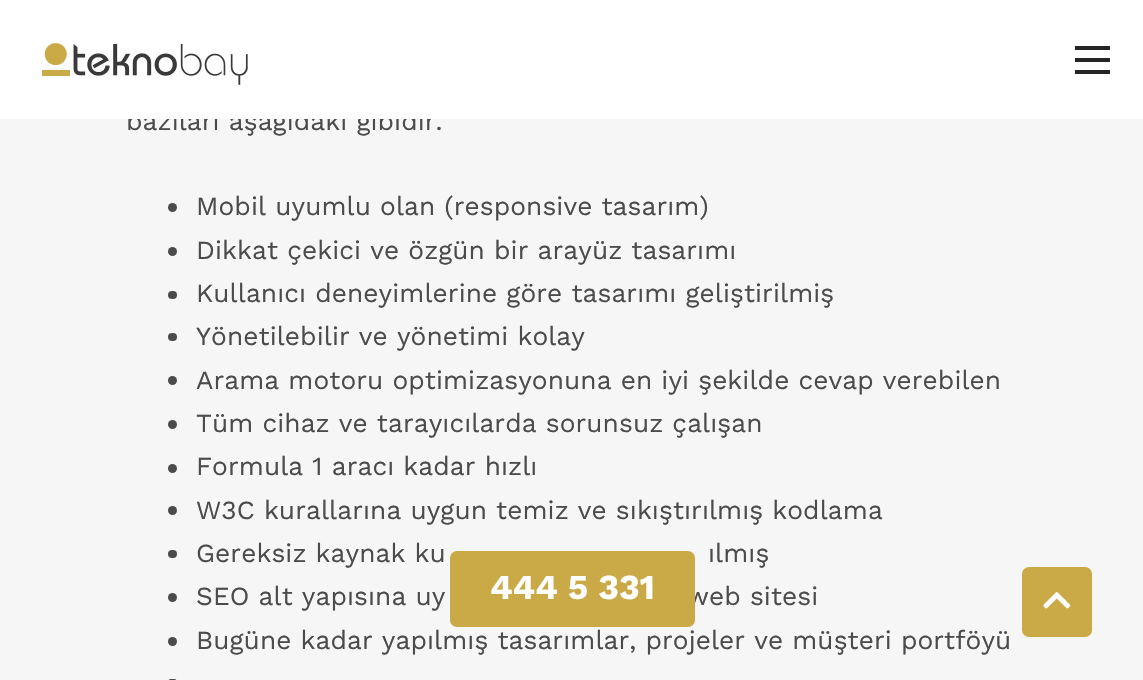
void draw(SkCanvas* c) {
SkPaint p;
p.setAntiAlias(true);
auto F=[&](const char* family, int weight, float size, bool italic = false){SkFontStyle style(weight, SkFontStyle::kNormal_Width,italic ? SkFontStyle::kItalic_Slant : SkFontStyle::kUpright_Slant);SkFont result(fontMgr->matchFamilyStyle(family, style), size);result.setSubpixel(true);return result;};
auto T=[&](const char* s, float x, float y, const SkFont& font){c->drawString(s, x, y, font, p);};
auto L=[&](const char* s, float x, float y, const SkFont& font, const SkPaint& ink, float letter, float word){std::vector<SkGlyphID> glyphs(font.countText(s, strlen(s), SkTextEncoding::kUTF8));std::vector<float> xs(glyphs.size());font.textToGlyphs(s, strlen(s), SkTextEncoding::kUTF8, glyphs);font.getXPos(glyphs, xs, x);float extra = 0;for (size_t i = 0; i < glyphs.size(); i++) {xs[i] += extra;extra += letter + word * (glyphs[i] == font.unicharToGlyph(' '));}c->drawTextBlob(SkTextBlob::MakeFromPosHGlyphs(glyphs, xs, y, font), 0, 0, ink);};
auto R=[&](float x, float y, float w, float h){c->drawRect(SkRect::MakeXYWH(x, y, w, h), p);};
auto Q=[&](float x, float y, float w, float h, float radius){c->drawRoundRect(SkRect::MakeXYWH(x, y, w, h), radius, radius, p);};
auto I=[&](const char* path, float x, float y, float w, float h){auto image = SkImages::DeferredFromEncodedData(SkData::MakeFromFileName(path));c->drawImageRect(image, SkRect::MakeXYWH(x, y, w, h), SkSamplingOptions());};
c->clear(0xfff6f6f6);
auto f1 = F("Work Sans",400,26.25);
p.setColor(0xff4b4b4b);
L("bazıları aşağıdaki gibidir.",126,130,f1,p,.1,0);
p.setColor(0xffffffff);
R(0,0,1143,119);
I("1.png",42,43,206,42);
p.setColor(0xff252525);
R(1075,46,35,4);
R(1075,58,35,4);
R(1075,70,35,4);
p.setColor(0xff4b4b4b);
c->drawCircle(172.5,207.5,4.5,p);
L("Mobil uyumlu olan (responsive tasarım)",196,215,f1,p,.1,0);
c->drawCircle(172.5,251.5,4.5,p);
L("Dikkat çekici ve özgün bir arayüz tasarımı",196,259,f1,p,.1,0);
Q(168,291,9,8,4);
L("Kullanıcı deneyimlerine göre tasarımı geliştirilmiş",196,302,f1,p,.1,0);
Q(168,333,9,8,4);
L("Yönetilebilir ve yönetimi kolay",196,345,f1,p,.1,0);
c->drawCircle(172.5,380.5,4.5,p);
L("Arama motoru optimizasyonuna en iyi şekilde cevap verebilen",196,389,f1,p,.1,0);
c->drawCircle(172.5,424.5,4.5,p);
L("Tüm cihaz ve tarayıcılarda sorunsuz çalışan",196,432,f1,p,.1,0);
c->drawCircle(172.5,468.5,4.5,p);
L("Formula 1 aracı kadar hızlı",196,475,f1,p,.1,0);
c->drawCircle(172.5,510.5,4.5,p);
L("W3C kurallarına uygun temiz ve sıkıştırılmış kodlama",196,519,f1,p,.1,0);
Q(168,550,9,8,4);
L("Gereksiz kaynak ku",196,562,f1,p,.1,0);
L("ılmış",708,562,f1,p,.1,0);
c->drawCircle(172.5,597.5,4.5,p);
L("SEO alt yapısına uy",196,605,f1,p,.1,0);
L("web sitesi",687,605,f1,p,.1,0);
c->drawCircle(172.5,641.5,4.5,p);
L("Bugüne kadar yapılmış tasarımlar, projeler ve müşteri portföyü",196,649,f1,p,.1,0);
Q(168,679,9,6,4.5);
p.setColor(0xffcaaa46);
Q(1022,567,70,70,7);
I("2.png",1043,592,28,17);
Q(450,551,245,76,7);
auto f2 = F("Work Sans",700,35);
p.setColor(0xffffffff);
T("444 5 331",490,599,f2);
}
